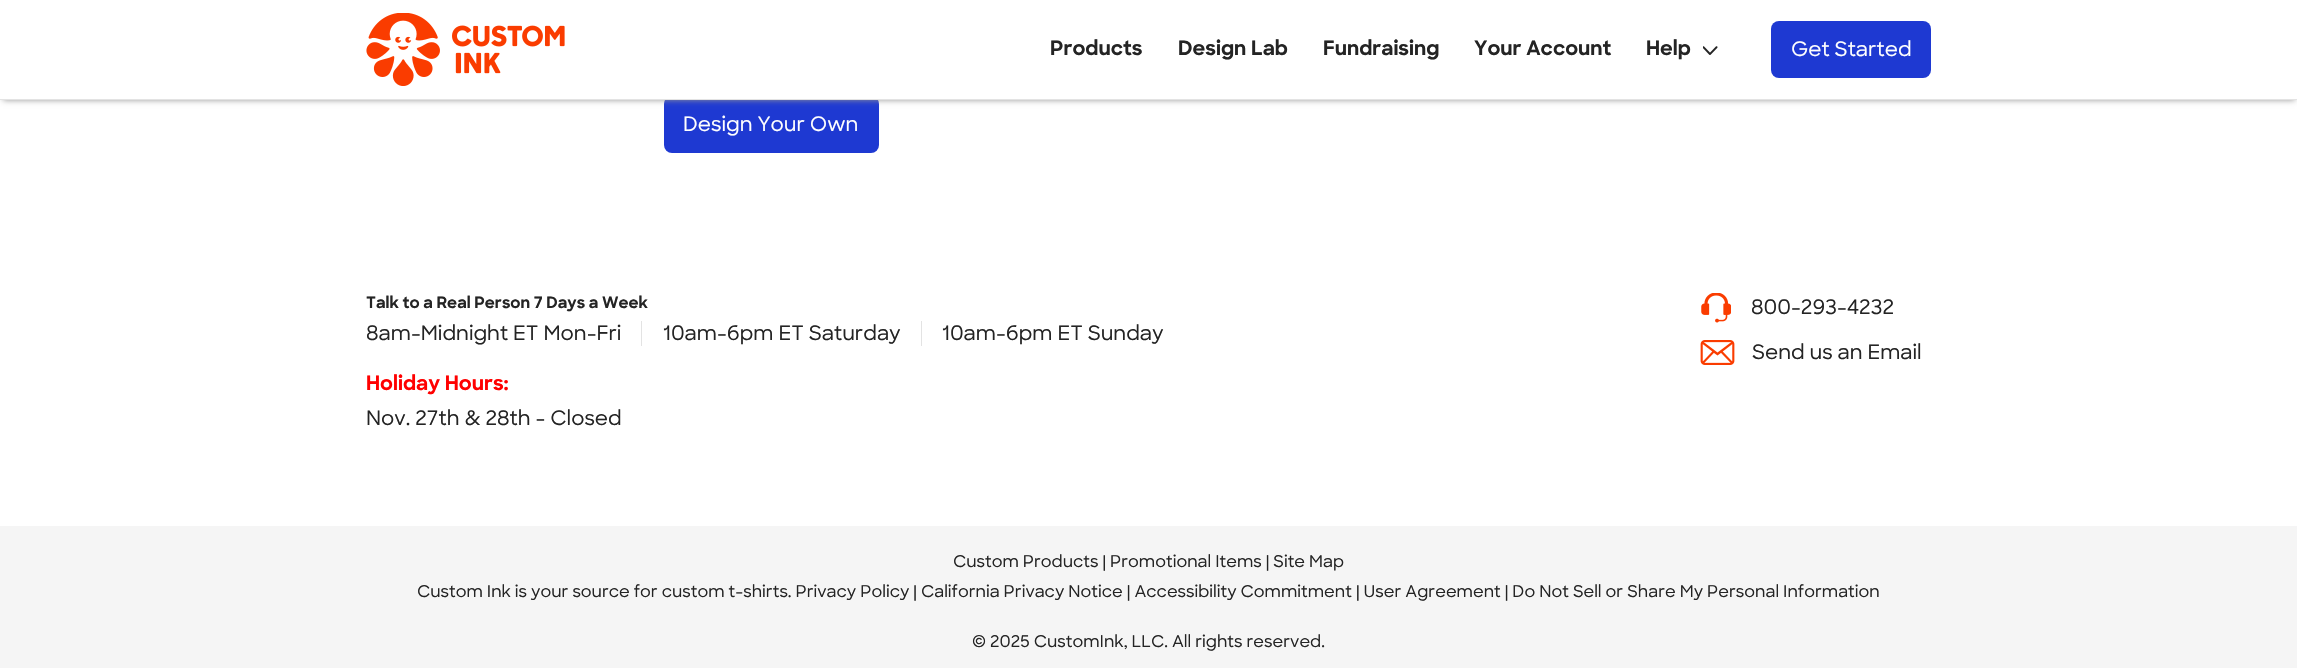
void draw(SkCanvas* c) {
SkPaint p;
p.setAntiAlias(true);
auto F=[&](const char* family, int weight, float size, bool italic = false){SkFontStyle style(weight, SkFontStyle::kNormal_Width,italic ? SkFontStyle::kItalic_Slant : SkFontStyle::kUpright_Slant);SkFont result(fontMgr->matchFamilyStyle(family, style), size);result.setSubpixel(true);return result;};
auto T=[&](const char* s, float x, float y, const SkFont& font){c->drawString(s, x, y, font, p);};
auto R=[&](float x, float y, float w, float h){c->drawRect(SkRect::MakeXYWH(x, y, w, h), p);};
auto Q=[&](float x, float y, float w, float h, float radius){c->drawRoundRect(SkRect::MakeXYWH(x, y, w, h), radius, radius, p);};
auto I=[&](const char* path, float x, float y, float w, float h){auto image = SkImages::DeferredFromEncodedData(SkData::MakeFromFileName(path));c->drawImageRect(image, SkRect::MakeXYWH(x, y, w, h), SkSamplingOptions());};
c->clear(0xffffffff);
p.setColor(0xff1e39d2);
Q(664,96,215,57,8);
p.setColor(0xff969696);
p.setMaskFilter(SkMaskFilter::MakeBlur(kNormal_SkBlurStyle, 3));
c->drawRect(SkRect::MakeXYWH(3,5,2292,95),p);
p.setMaskFilter(nullptr);
p.setColor(0xffffffff);
R(0,0,2297,99);
p.setColor(0xffe3e3e3);
R(0,99,2297,1);
I("1.png",366,13,199,73);
auto f1 = F("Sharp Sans",700,20);
p.setColor(0xff242424);
T("Products",1050,55,f1);
T("Design Lab",1178,55,f1);
T("Fundraising",1323,55,f1);
T("Your Account",1474,55,f1);
T("Help",1646,55,f1);
I("2.png",1703,46,15,9);
p.setColor(0xff1e39d2);
Q(1771,21,160,57,8);
auto f2 = F("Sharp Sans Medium",500,20);
p.setColor(0xffffffff);
T("Get Started",1791,56,f2);
T("Design Your Own",683,131,f2);
auto f3 = F("Sharp Sans",700,15.75);
p.setColor(0xff242424);
T("Talk to a Real Person 7 Days a Week",366,308,f3);
I("3.png",1701,293,30,30);
T("800-293-4232",1751,314,f2);
p.setColor(0xffe3e3e3);
R(641,321,1,25);
p.setColor(0xff242424);
T("8am-Midnight ET Mon-Fri",366,340,f2);
p.setColor(0xffe3e3e3);
R(921,321,1,25);
p.setColor(0xff242424);
T("10am-6pm ET Saturday",663,340,f2);
T("10am-6pm ET Sunday",942,340,f2);
I("4.png",1700,340,35,25);
T("Send us an Email",1752,359,f2);
p.setColor(0xffff0000);
T("Holiday Hours:",366,390,f1);
p.setColor(0xff242424);
T("Nov. 27th & 28th - Closed",366,425,f2);
p.setColor(0xfff5f5f5);
R(0,526,2297,142);
auto f4 = F("Sharp Sans Medium",500,16.25);
p.setColor(0xff242424);
T("Custom Products | Promotional Items | Site Map",953,567,f4);
T("Custom Ink is your source for custom t-shirts. Privacy Policy | California Privacy Notice | Accessibility Commitment | User Agreement | Do Not Sell or Share My Personal Information",417,597,f4);
T("© 2025 CustomInk, LLC. All rights reserved.",972,647,f4);
}
